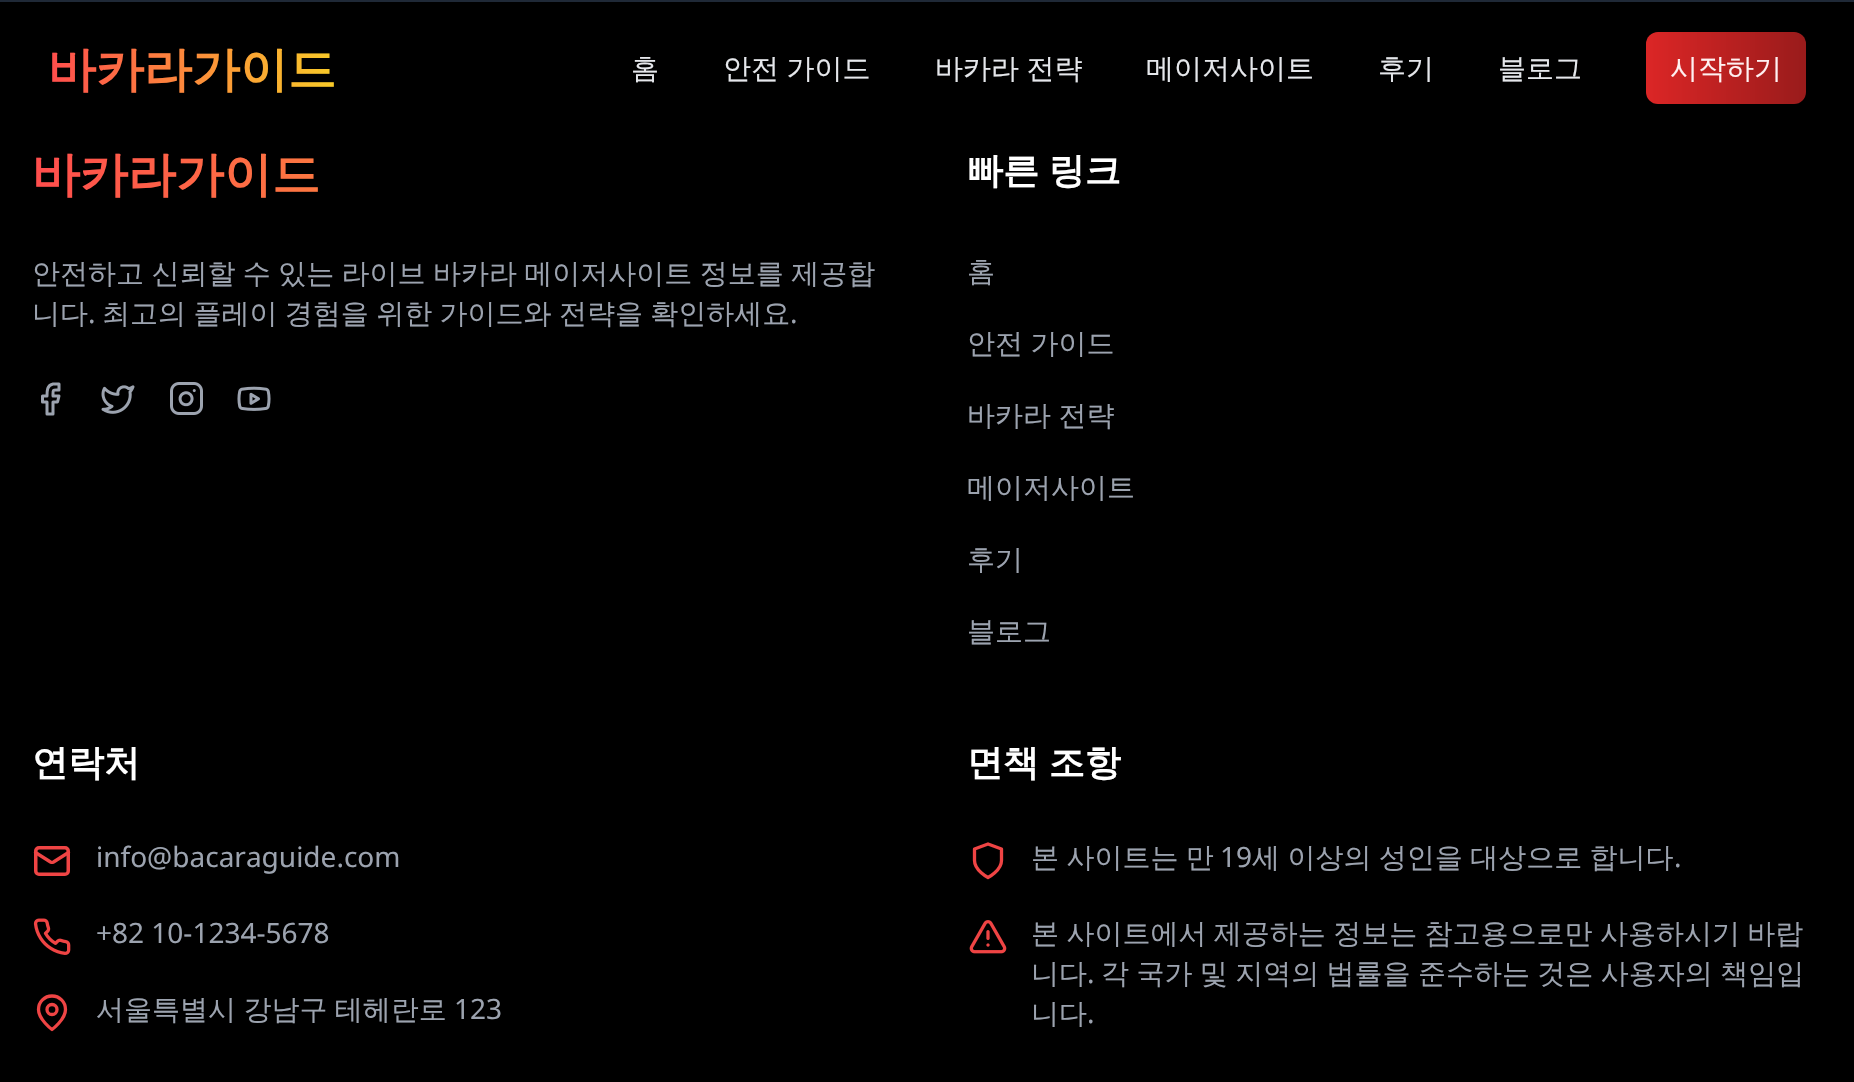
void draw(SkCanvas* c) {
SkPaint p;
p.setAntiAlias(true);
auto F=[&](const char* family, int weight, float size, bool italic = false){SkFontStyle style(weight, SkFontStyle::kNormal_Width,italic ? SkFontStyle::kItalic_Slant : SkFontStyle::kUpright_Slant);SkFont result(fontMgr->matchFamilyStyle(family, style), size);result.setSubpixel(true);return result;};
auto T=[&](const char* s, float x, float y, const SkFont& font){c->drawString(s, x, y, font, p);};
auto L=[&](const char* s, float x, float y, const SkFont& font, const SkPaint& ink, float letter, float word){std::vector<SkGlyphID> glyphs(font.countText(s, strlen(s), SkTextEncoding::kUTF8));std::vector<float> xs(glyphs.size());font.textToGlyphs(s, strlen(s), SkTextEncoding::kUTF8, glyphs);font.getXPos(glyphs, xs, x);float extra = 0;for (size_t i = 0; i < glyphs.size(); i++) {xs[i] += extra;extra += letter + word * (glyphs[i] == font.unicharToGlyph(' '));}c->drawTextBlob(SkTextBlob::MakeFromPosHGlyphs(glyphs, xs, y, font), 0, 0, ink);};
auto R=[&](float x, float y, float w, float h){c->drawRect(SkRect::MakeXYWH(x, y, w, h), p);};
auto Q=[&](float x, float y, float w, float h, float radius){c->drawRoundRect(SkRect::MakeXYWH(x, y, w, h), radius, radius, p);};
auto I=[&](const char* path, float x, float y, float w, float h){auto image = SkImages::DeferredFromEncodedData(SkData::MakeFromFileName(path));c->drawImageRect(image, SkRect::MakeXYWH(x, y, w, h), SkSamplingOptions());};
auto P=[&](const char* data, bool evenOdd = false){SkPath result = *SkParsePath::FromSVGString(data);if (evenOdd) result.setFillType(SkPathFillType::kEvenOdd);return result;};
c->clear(0xff000000);
auto f1 = F("WenQuanYi Zen Hei",700,48);
{
const SkColor colors[] = {0xffff4d4d,0xfff9cb28};
const float stops[] = {0,1};
const SkPoint ends[] = {{48,68}, {336,68}};
p.setShader(SkGradientShader::MakeLinear(ends, colors, stops, 2, SkTileMode::kClamp));
p.setAlpha(255);
}
T("바카라가이드",48,86,f1);
auto f2 = F("WenQuanYi Zen Hei",500,28);
p.setShader(nullptr);
p.setColor(0xffe5e7eb);
T("홈",631,78,f2);
L("안전 가이드",723,78,f2,p,0,-1);
L("바카라 전략",935,78,f2,p,0,-1);
T("메이저사이트",1146,78,f2);
T("후기",1378,78,f2);
T("블로그",1498,78,f2);
{
const SkColor colors[] = {0xffdc2626,0xff991b1b};
const float stops[] = {0,1};
const SkPoint ends[] = {{1646,68}, {1806,68}};
p.setShader(SkGradientShader::MakeLinear(ends, colors, stops, 2, SkTileMode::kClamp));
p.setAlpha(255);
}
Q(1646,32,160,72,12);
p.setShader(nullptr);
p.setColor(0xfffff1f2);
T("시작하기",1670,78,f2);
p.setColor(0xff1f2937);
R(0,0,1854,2);
{
const SkColor colors[] = {0xffff4d4d,0xfff9cb28};
const float stops[] = {0,1};
const SkPoint ends[] = {{32,173}, {887,173}};
p.setShader(SkGradientShader::MakeLinear(ends, colors, stops, 2, SkTileMode::kClamp));
p.setAlpha(255);
}
T("바카라가이드",32,191,f1);
p.setShader(nullptr);
p.setColor(0xff9ca3af);
L("안전하고 신뢰할 수 있는 라이브 바카라 메이저사이트 정보를 제공합",32,283,f2,p,0,-1);
T("니다",32,323,f2);
auto f3 = F("Noto Sans",400,28);
T(".",88,323,f3);
L("최고의 플레이 경험을 위한 가이드와 전략을 확인하세요",102,323,f2,p,0,-1);
T(".",790,323,f3);
p.setStroke(true);
p.setStrokeWidth(3);
p.setStrokeCap(SkPaint::kRound_Cap);
p.setStrokeJoin(SkPaint::kRound_Join);
c->drawPath(P("M59 384h-6c-6 1-6 7-6 12h-4.5v6h4.5v12h6v-12h4.5l1.5-6h-6c0-7-.5-6 6-6z"),p);
I("1.png",101,385,34,29);
I("2.png",170,382,33,33);
I("3.png",237,386,34,25);
auto f4 = F("WenQuanYi Zen Hei",700,36);
p.setStroke(false);
p.setColor(0xffffffff);
L("빠른 링크",967,183,f4,p,0,-1);
p.setColor(0xff9ca3af);
T("홈",967,281,f2);
L("안전 가이드",967,353,f2,p,0,-1);
L("바카라 전략",967,425,f2,p,0,-1);
T("메이저사이트",967,497,f2);
T("후기",967,569,f2);
T("블로그",967,641,f2);
p.setColor(0xffffffff);
T("연락처",32,775,f4);
p.setStroke(true);
p.setStrokeWidth(3.5);
p.setStrokeCap(SkPaint::kButt_Cap);
p.setStrokeJoin(SkPaint::kMiter_Join);
p.setColor(0xffef4444);
c->drawRoundRect(SkRect::MakeXYWH(35.75,847.75,32.5,26.5),3.25,3.25,p);
p.setStrokeWidth(3.3);
p.setStrokeCap(SkPaint::kRound_Cap);
p.setStrokeJoin(SkPaint::kRound_Join);
c->drawPath(P("M68.5 852.5l-15 9.5c-1 .5-2 .5-3 0l-15-9.5"),p);
p.setStroke(false);
p.setColor(0xff9ca3af);
T("info@bacaraguide.com",96,867,f3);
I("4.png",33,918,38,37);
T("+82 10-1234-5678",96,943,f3);
p.setStroke(true);
p.setColor(0xffef4444);
c->drawPath(P("M65.5 1009.5c0 10-13.5 20-13.5 20c0 0-13.5-10-13.5-20c0-7.5 6-13.5 13.5-13.5c7.5 0 13.5 6 13.5 13.5z"),p);
p.setStrokeCap(SkPaint::kButt_Cap);
p.setStrokeJoin(SkPaint::kMiter_Join);
c->drawCircle(52,1009.5,5,p);
p.setStroke(false);
p.setColor(0xff9ca3af);
L("서울특별시 강남구 테헤란로",96,1019,f2,p,0,-1);
T("123",454,1019,f3);
p.setColor(0xffffffff);
L("면책 조항",967,775,f4,p,0,-1);
p.setStroke(true);
p.setStrokeCap(SkPaint::kRound_Cap);
p.setStrokeJoin(SkPaint::kRound_Join);
p.setColor(0xffef4444);
c->drawPath(P("M988 877.5c0 0 13.5-7 13.5-17v-11.5l-13.5-5l-13.5 5v11.5c0 10 13.5 17 13.5 17"),p);
p.setStroke(false);
p.setColor(0xff9ca3af);
L("본 사이트는 만",1031,867,f2,p,0,-1);
T("19",1220,867,f3);
L("세 이상의 성인을 대상으로 합니다",1252,867,f2,p,0,-1);
T(".",1674,867,f3);
I("5.png",969,920,38,34);
L("본 사이트에서 제공하는 정보는 참고용으로만 사용하시기 바랍",1031,943,f2,p,0,-1);
T("니다",1031,983,f2);
T(".",1087,983,f3);
L("각 국가 및 지역의 법률을 준수하는 것은 사용자의 책임입",1101,983,f2,p,0,-1);
T("니다",1031,1023,f2);
T(".",1087,1023,f3);
}
